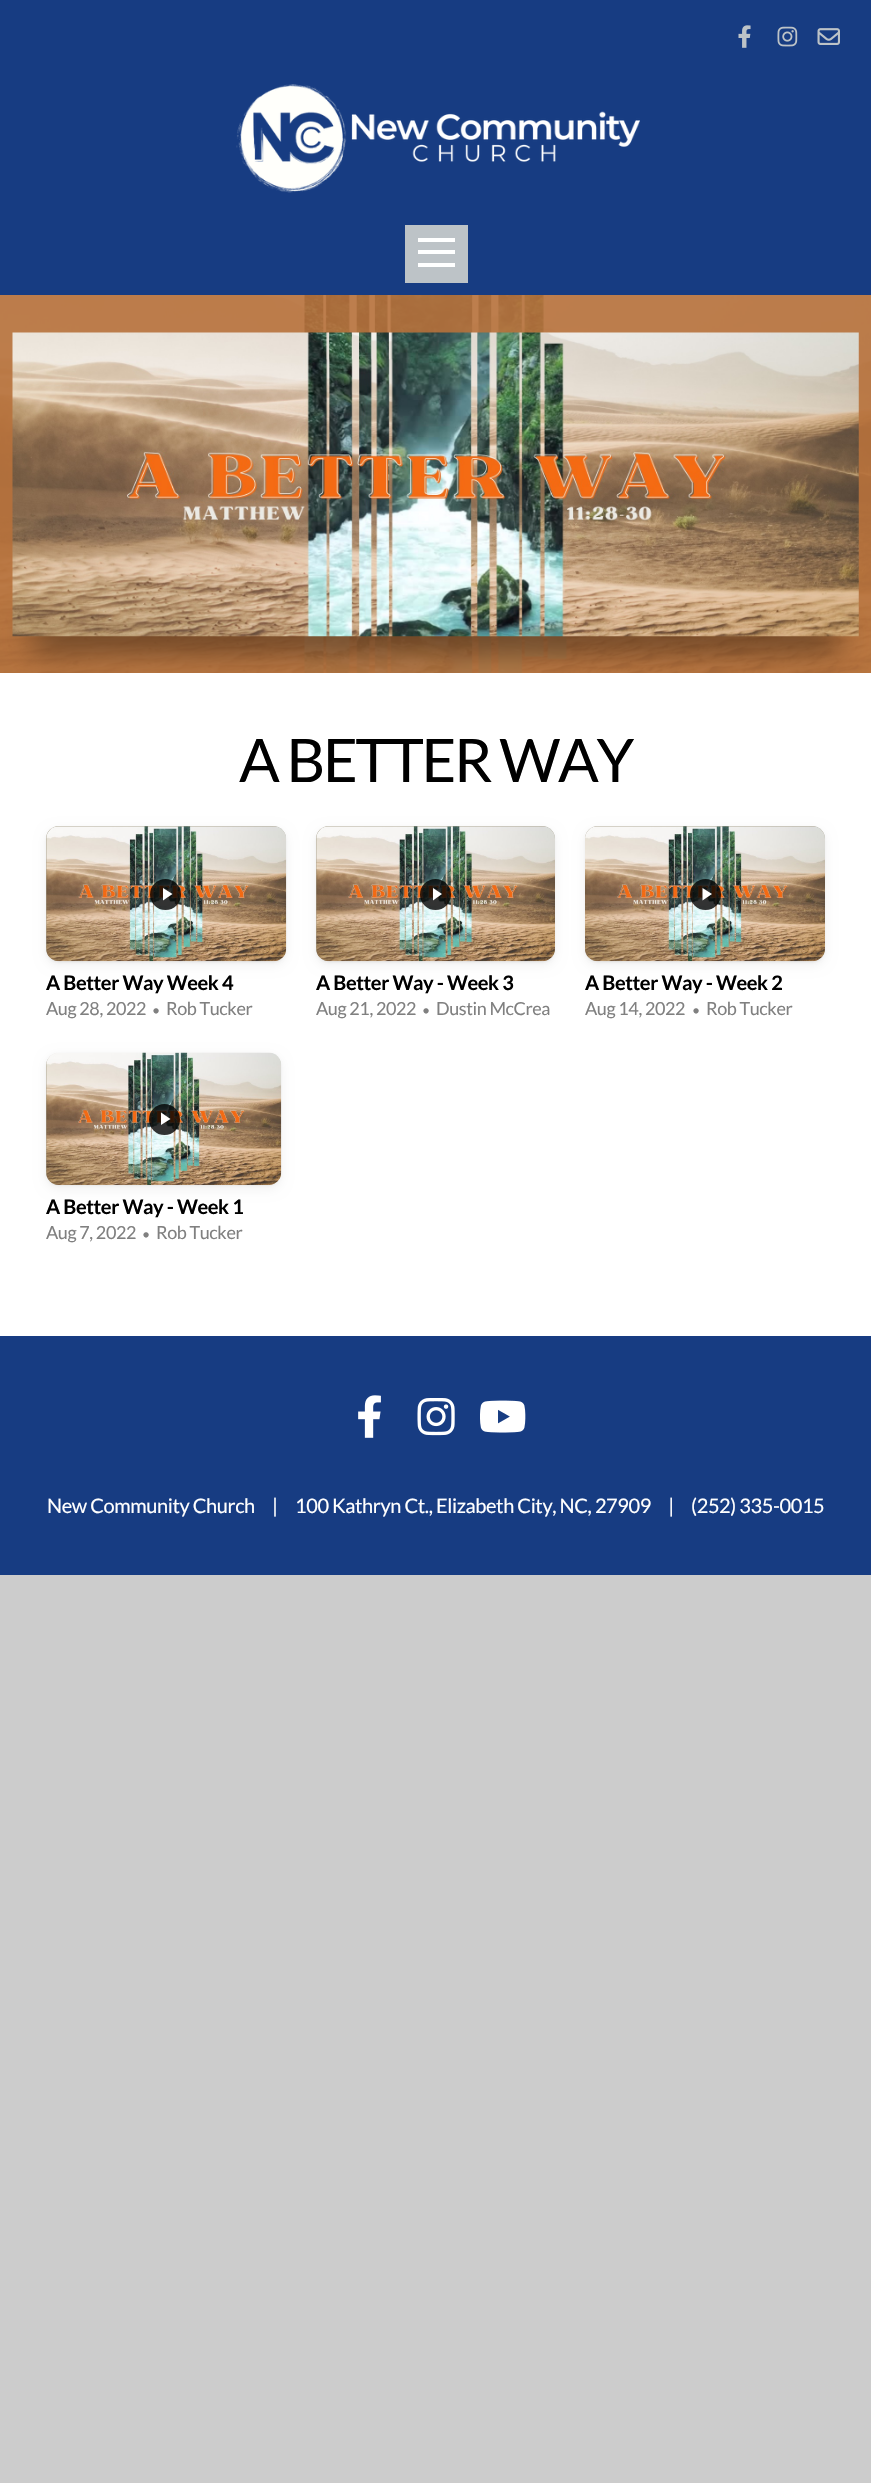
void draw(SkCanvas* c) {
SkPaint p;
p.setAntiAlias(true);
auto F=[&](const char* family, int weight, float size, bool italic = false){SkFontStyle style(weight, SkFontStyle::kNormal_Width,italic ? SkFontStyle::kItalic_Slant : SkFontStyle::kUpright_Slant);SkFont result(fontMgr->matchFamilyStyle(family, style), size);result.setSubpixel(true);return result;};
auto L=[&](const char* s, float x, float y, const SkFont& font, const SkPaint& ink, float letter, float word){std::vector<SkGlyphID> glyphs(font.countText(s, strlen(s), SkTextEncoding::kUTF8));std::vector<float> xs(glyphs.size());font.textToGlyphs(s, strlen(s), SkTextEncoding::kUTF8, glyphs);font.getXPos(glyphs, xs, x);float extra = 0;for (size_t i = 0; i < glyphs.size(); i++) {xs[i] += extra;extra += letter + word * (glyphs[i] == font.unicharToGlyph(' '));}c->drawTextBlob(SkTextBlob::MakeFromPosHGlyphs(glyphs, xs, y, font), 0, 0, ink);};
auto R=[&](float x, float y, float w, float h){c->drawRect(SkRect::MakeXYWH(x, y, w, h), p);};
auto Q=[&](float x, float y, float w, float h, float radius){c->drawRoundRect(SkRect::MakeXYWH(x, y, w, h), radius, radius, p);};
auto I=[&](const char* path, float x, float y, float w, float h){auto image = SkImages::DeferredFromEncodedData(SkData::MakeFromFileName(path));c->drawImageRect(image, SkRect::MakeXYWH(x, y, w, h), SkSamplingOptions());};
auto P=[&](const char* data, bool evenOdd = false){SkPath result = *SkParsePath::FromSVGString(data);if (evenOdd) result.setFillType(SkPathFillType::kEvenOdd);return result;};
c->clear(0xffcccccc);
p.setColor(0xff173c82);
R(0,0,871,295);
I("1.png",738,25,13,23);
I("2.png",777,26,21,21);
I("3.png",817,28,23,17);
I("4.png",236,84,404,109);
p.setStroke(true);
p.setStrokeWidth(13);
p.setColor(0xffbdc3c7);
c->drawRect(SkRect::MakeXYWH(411.5,231.5,50,45),p);
p.setStroke(false);
R(418,242,37,28);
p.setColor(0xffffffff);
R(418,238,37,4);
R(418,250,37,4);
R(418,263,37,4);
I("5.png",0,295,871,378);
p.setColor(0x80000000);
p.setMaskFilter(SkMaskFilter::MakeBlur(kNormal_SkBlurStyle, 15.5));
c->drawRoundRect(SkRect::MakeXYWH(30,623,811,27),13.5,13.5,p);
p.setMaskFilter(nullptr);
I("6.png",12,332,847,305);
p.setColor(0xffffffff);
R(0,673,871,663);
auto f1 = F("Lato",400,60);
p.setColor(0xff000000);
L("A BETTER WAY",239,782,f1,p,-2.4,0);
p.setColor(0x0a000000);
p.setMaskFilter(SkMaskFilter::MakeBlur(kNormal_SkBlurStyle, 1));
c->drawRoundRect(SkRect::MakeXYWH(46,828,240,135),13,13,p);
p.setMaskFilter(nullptr);
p.setColor(0x0f000000);
p.setMaskFilter(SkMaskFilter::MakeBlur(kNormal_SkBlurStyle, 6));
c->drawRoundRect(SkRect::MakeXYWH(46,830,240,135),13,13,p);
p.setMaskFilter(nullptr);
p.setColor(0xffa69f8b);
Q(46,826,240,135,13);
I("7.png",46,826,241,136);
p.setColor(0xcc000000);
c->drawCircle(165.5,894.5,15.5,p);
p.setColor(0xffffffff);
c->drawPath(P("M163 900.5v-12.5l9.5 6z"),p);
auto f2 = F("Lato",700,20);
p.setColor(0xff000000);
L("A Better Way Week 4",46,990,f2,p,-.4,0);
auto f3 = F("Lato",400,18);
p.setColor(0xff808080);
L("Aug 28, 2022",46,1015,f3,p,-.4,0);
auto f4 = F("Lato",400,14);
L("•",152,1015,f4,p,-.4,0);
L("Rob Tucker",166,1015,f3,p,-.4,0);
p.setColor(0x0a000000);
p.setMaskFilter(SkMaskFilter::MakeBlur(kNormal_SkBlurStyle, 1));
c->drawRoundRect(SkRect::MakeXYWH(316,828,239,135),13,13,p);
p.setMaskFilter(nullptr);
p.setColor(0x0f000000);
p.setMaskFilter(SkMaskFilter::MakeBlur(kNormal_SkBlurStyle, 6));
c->drawRoundRect(SkRect::MakeXYWH(316,830,239,135),13,13,p);
p.setMaskFilter(nullptr);
p.setColor(0xffa69f8b);
Q(316,826,239,135,13);
I("8.png",316,826,239,136);
p.setColor(0xcc000000);
c->drawCircle(435.5,894.5,15.5,p);
p.setColor(0xffffffff);
c->drawPath(P("M433 900.5v-12.5l9 6z"),p);
p.setColor(0xff000000);
L("A Better Way - Week 3",316,990,f2,p,-.4,0);
p.setColor(0xff808080);
L("Aug 21, 2022",316,1015,f3,p,-.4,0);
L("•",422,1015,f4,p,-.4,0);
L("Dustin McCrea",436,1015,f3,p,-.4,0);
p.setColor(0x0a000000);
p.setMaskFilter(SkMaskFilter::MakeBlur(kNormal_SkBlurStyle, 1));
c->drawRoundRect(SkRect::MakeXYWH(585,828,240,135),13,13,p);
p.setMaskFilter(nullptr);
p.setColor(0x0f000000);
p.setMaskFilter(SkMaskFilter::MakeBlur(kNormal_SkBlurStyle, 6));
c->drawRoundRect(SkRect::MakeXYWH(585,830,240,135),13,13,p);
p.setMaskFilter(nullptr);
p.setColor(0xffa69f8b);
Q(585,826,240,135,13);
I("9.png",585,826,240,136);
p.setColor(0xcc000000);
c->drawCircle(705.5,894.5,15.5,p);
p.setColor(0xffffffff);
c->drawPath(P("M702.5 900.5v-12.5l9.5 6z"),p);
p.setColor(0xff000000);
L("A Better Way - Week 2",585,990,f2,p,-.4,0);
p.setColor(0xff808080);
L("Aug 14, 2022",585,1015,f3,p,-.4,0);
L("•",692,1015,f4,p,-.4,0);
L("Rob Tucker",706,1015,f3,p,-.4,0);
p.setColor(0x0a000000);
p.setMaskFilter(SkMaskFilter::MakeBlur(kNormal_SkBlurStyle, 1));
c->drawRoundRect(SkRect::MakeXYWH(46,1054,235,132),13,13,p);
p.setMaskFilter(nullptr);
p.setColor(0x0f000000);
p.setMaskFilter(SkMaskFilter::MakeBlur(kNormal_SkBlurStyle, 6));
c->drawRoundRect(SkRect::MakeXYWH(46,1056,235,133),13,13,p);
p.setMaskFilter(nullptr);
p.setColor(0xffa69f8b);
Q(46,1053,235,132,13);
I("10.png",46,1052,236,133);
p.setColor(0xcc000000);
c->drawCircle(164.5,1119.5,15.5,p);
p.setColor(0xffffffff);
c->drawPath(P("M161 1125v-12.5l9.5 6.5z"),p);
p.setColor(0xff000000);
L("A Better Way - Week 1",46,1214,f2,p,-.4,0);
p.setColor(0xff808080);
L("Aug 7, 2022",46,1239,f3,p,-.4,0);
L("•",142,1239,f4,p,-.4,0);
L("Rob Tucker",156,1239,f3,p,-.4,0);
p.setColor(0xff173c82);
R(0,1336,871,239);
I("11.png",358,1395,23,43);
I("12.png",417,1398,38,38);
I("13.png",480,1400,46,33);
auto f5 = F("Lato",400,20);
p.setColor(0xffffffff);
L("New Community Church     |     100 Kathryn Ct., Elizabeth City, NC, 27909     |     (252) 335-0015",47,1513,f5,p,-.4,0);
}
